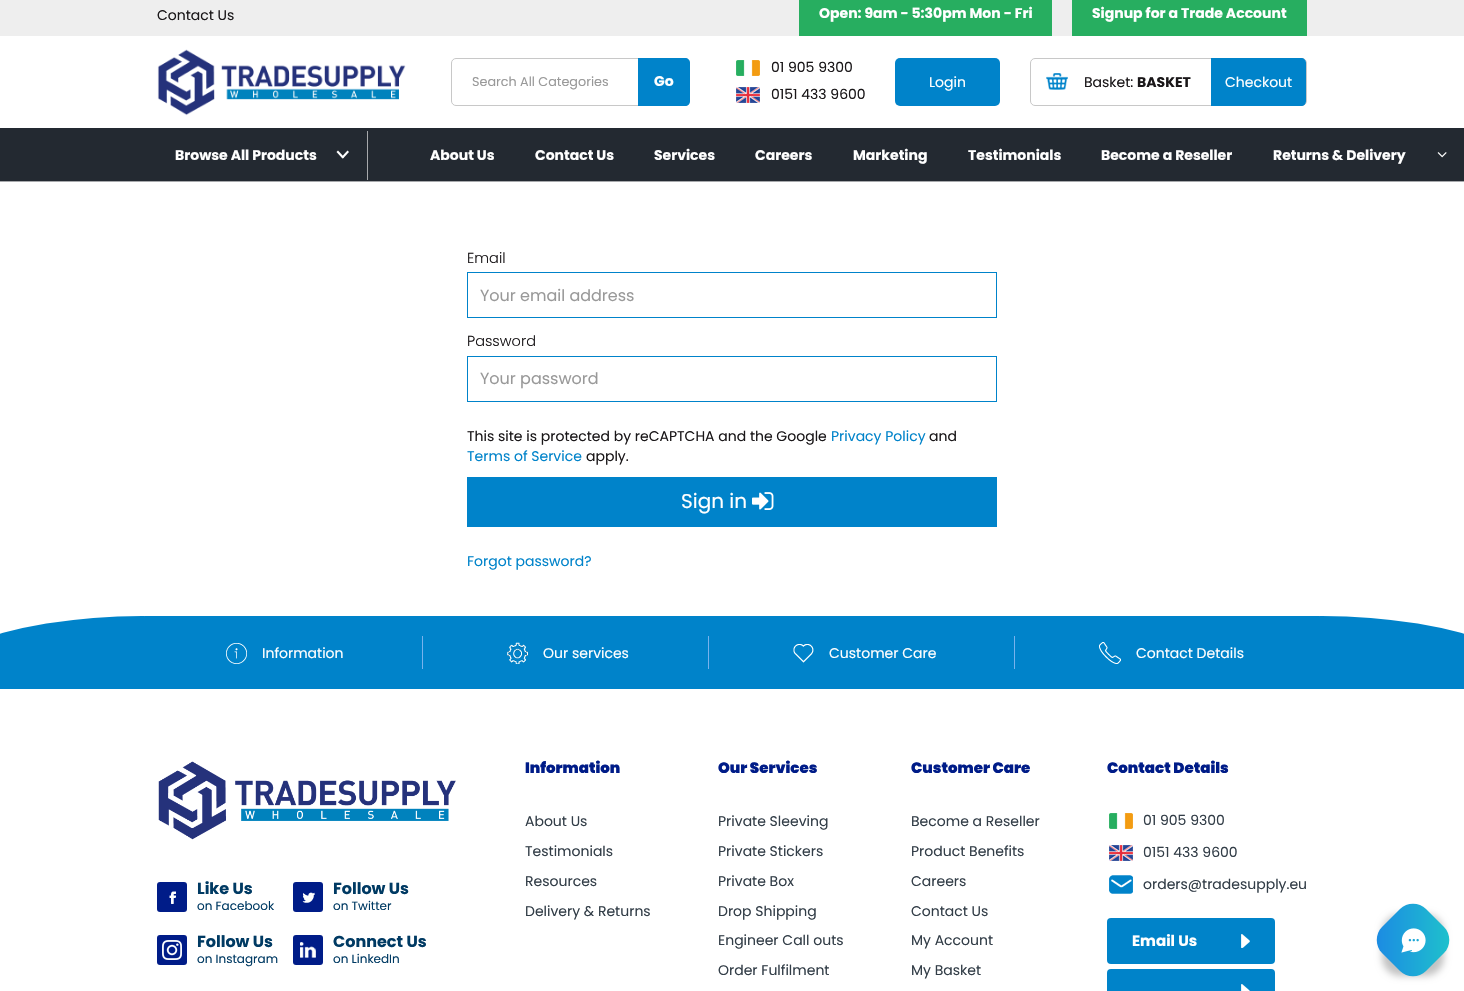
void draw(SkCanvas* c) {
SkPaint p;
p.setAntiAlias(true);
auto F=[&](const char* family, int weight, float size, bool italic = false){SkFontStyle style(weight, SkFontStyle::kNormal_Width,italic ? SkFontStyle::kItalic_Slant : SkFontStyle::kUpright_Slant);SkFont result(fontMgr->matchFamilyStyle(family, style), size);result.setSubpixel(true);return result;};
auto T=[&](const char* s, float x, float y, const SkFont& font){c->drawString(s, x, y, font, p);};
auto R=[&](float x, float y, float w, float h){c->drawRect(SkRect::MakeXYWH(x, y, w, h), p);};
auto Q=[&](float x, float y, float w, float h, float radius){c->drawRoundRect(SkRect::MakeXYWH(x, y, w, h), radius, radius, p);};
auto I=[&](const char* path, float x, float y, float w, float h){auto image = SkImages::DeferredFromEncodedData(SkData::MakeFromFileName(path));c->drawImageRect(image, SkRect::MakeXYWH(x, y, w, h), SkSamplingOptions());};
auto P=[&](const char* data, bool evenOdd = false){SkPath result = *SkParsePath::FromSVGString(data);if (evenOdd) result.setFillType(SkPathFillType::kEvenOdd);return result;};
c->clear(0xffffffff);
p.setColor(0xffeeeeee);
R(0,0,1464,36);
auto f1 = F("Poppins",400,14);
p.setColor(0xff1a1719);
T("Contact Us",157,20,f1);
p.setColor(0xff27ae60);
R(799,0,253,36);
auto f2 = F("Poppins",700,14);
p.setColor(0xffffffff);
T("Open: 9am - 5:30pm Mon - Fri",819,18,f2);
p.setColor(0xff27ae60);
R(1072,0,235,36);
p.setColor(0xffffffff);
T("Signup for a Trade Account",1092,18,f2);
I("1.png",157,49,249,67);
p.setStroke(true);
p.setStrokeWidth(1);
p.setColor(0xffc8c8c8);
c->drawRoundRect(SkRect::MakeXYWH(451.5,58.5,238,47),4.5,4.5,p);
auto f3 = F("Poppins",400,12.75);
p.setStroke(false);
p.setColor(0xff999999);
T("Search All Categories",472,86,f3);
p.setColor(0xff0083ca);
c->drawPath(P("M638 58h47c3 0 5 2 5 5v38c0 3-2 5-5 5h-47z"),p);
p.setColor(0xffffffff);
T("Go",654,86,f2);
I("2.png",736,60,24,16);
p.setColor(0xff1a1719);
T("01 905 9300",771,72,f1);
I("3.png",736,87,24,16);
T("0151 433 9600",771,99,f1);
p.setColor(0xff0083ca);
Q(895,58,105,48,5);
p.setColor(0xffffffff);
T("Login",929,87,f1);
p.setStroke(true);
p.setColor(0xffc8c8c8);
c->drawRoundRect(SkRect::MakeXYWH(1030.5,58.5,276,47),4.5,4.5,p);
I("4.png",1046,73,22,17);
p.setStroke(false);
p.setColor(0xff1a1719);
T("Basket:",1084,87,f1);
T("BASKET",1137,87,f2);
p.setColor(0xff0083ca);
c->drawPath(P("M1211 58h90c3 0 5 2 5 5v38c0 3-2 5-5 5h-90z"),p);
p.setColor(0xffffffff);
T("Checkout",1225,87,f1);
p.setColor(0xff232931);
R(0,128,1464,53);
p.setColor(0xffa7a9ac);
R(0,181,1464,1);
R(367,131,1,49);
p.setColor(0xffffffff);
T("Browse All Products",175,160,f2);
c->drawPath(P("M338 150.5l6 6.5l-1.5 1.5l-6-6.5z"),p);
c->drawPath(P("M341.5 157l6-6.5l1.5 1.5l-6 6.5z"),p);
T("About Us",430,160,f2);
T("Contact Us",535,160,f2);
T("Services",654,160,f2);
T("Careers",755,160,f2);
T("Marketing",853,160,f2);
T("Testimonials",968,160,f2);
T("Become a Reseller",1101,160,f2);
T("Returns & Delivery",1273,160,f2);
I("5.png",1437,152,10,6);
auto f4 = F("Poppins",300,14.5);
p.setColor(0xff1a1719);
T("Email",467,263,f4);
p.setStroke(true);
p.setColor(0xff0083ca);
c->drawRect(SkRect::MakeXYWH(467.5,272.5,529,45),p);
auto f5 = F("Poppins",400,16);
p.setStroke(false);
p.setColor(0xff999999);
T("Your email address",480,301,f5);
p.setColor(0xff1a1719);
T("Password",467,346,f4);
p.setStroke(true);
p.setColor(0xff0083ca);
c->drawRect(SkRect::MakeXYWH(467.5,356.5,529,45),p);
p.setStroke(false);
p.setColor(0xff999999);
T("Your password",480,384,f5);
p.setColor(0xff1a1719);
T("This site is protected by reCAPTCHA and the Google",467,441,f1);
p.setColor(0xff0083ca);
T("Privacy Policy",831,441,f1);
p.setColor(0xff1a1719);
T("and",929,441,f1);
p.setColor(0xff0083ca);
T("Terms of Service",467,461,f1);
p.setColor(0xff1a1719);
T("apply.",586,461,f1);
p.setColor(0xff0083ca);
R(467,477,530,50);
auto f6 = F("Poppins",400,20);
p.setColor(0xffffffff);
T("Sign in",681,508,f6);
I("6.png",752,492,22,18);
p.setColor(0xff0083ca);
T("Forgot password?",467,566,f1);
R(0,681,1464,8);
R(145,616,1174,65);
c->save();
c->clipRect(SkRect::MakeXYWH(0,616,1464,65));
c->drawOval(SkRect::MakeXYWH(-108,616,500,200),p);
c->restore();
I("7.png",226,643,21,21);
p.setColor(0xffffffff);
T("Information",262,658,f1);
p.setColor(0xff78b2ed);
R(422,636,1,33);
I("8.png",507,642,21,22);
p.setColor(0xffffffff);
T("Our services",543,658,f1);
p.setColor(0xff78b2ed);
R(708,636,1,33);
I("9.png",793,644,21,19);
p.setColor(0xffffffff);
T("Customer Care",829,658,f1);
p.setColor(0xff78b2ed);
R(1014,636,1,33);
c->save();
c->clipRect(SkRect::MakeXYWH(0,616,1464,65));
p.setColor(0xff0083ca);
c->drawOval(SkRect::MakeXYWH(1072,616,500,200),p);
c->restore();
I("10.png",1099,642,22,22);
p.setColor(0xffffffff);
T("Contact Details",1136,658,f1);
I("11.png",158,761,298,79);
p.setColor(0xff001c88);
Q(157,882,30,30,3);
I("12.png",169,891,7,13);
auto f7 = F("Poppins",700,16);
p.setColor(0xff003a63);
T("Like Us",197,894,f7);
auto f8 = F("Poppins",400,12);
T("on Facebook",197,910,f8);
p.setColor(0xff001c88);
Q(293,882,30,30,3);
I("13.png",302,892,13,11);
p.setColor(0xff003a63);
T("Follow Us",333,894,f7);
T("on Twitter",333,910,f8);
p.setColor(0xff001c88);
Q(157,935,30,30,3);
I("14.png",162,940,20,20);
p.setColor(0xff003a63);
T("Follow Us",197,947,f7);
T("on Instagram",197,963,f8);
p.setColor(0xff001c88);
Q(293,935,30,30,3);
I("15.png",300,942,16,16);
p.setColor(0xff003a63);
T("Connect Us",333,947,f7);
T("on LinkedIn",333,963,f8);
auto f9 = F("Poppins",900,15);
p.setColor(0xff001c88);
T("Information",525,773,f9);
p.setColor(0xff333e48);
T("About Us",525,826,f1);
T("Testimonials",525,856,f1);
T("Resources",525,886,f1);
T("Delivery & Returns",525,916,f1);
p.setColor(0xff001c88);
T("Our Services",718,773,f9);
p.setColor(0xff333e48);
T("Private Sleeving",718,826,f1);
T("Private Stickers",718,856,f1);
T("Private Box",718,886,f1);
T("Drop Shipping",718,916,f1);
T("Engineer Call outs",718,945,f1);
T("Order Fulfilment",718,975,f1);
p.setColor(0xff001c88);
T("Customer Care",911,773,f9);
p.setColor(0xff333e48);
T("Become a Reseller",911,826,f1);
T("Product Benefits",911,856,f1);
T("Careers",911,886,f1);
T("Contact Us",911,916,f1);
T("My Account",911,945,f1);
T("My Basket",911,975,f1);
p.setColor(0xff001c88);
T("Contact Details",1107,773,f9);
I("2.png",1109,813,24,16);
p.setColor(0xff333e48);
T("01 905 9300",1143,825,f1);
I("3.png",1109,845,24,16);
T("0151 433 9600",1143,857,f1);
I("16.png",1109,875,24,19);
T("orders@tradesupply.eu",1143,889,f1);
p.setColor(0xff0083c9);
Q(1107,918,168,46,4);
auto f10 = F("Poppins",700,15);
p.setColor(0xffffffff);
T("Email Us",1132,946,f10);
I("17.png",1241,934,9,14);
p.setColor(0xff0083c9);
Q(1107,969,168,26,4);
I("18.png",1241,984,9,7);
p.setColor(0x3d000000);
p.setMaskFilter(SkMaskFilter::MakeBlur(kNormal_SkBlurStyle, 3.5));
c->drawRoundRect(SkRect::MakeXYWH(1382,914,62,62),19,19,p);
p.setMaskFilter(nullptr);
{
const SkColor colors[] = {0xff1b86e5,0xff1fc6ca};
const float stops[] = {0,1};
const SkPoint ends[] = {{1369,940}, {1457,940}};
p.setShader(SkGradientShader::MakeLinear(ends, colors, stops, 2, SkTileMode::kClamp));
p.setAlpha(255);
}
c->drawPath(P("M1426 909l18 18c7 7 7 19 0 26l-18 18c-7 7-19 7-26 0l-18-18c-7-7-7-19 0-26l18-18c7-7 19-7 26 0z"),p);
I("19.png",1401,928,25,25);
}
